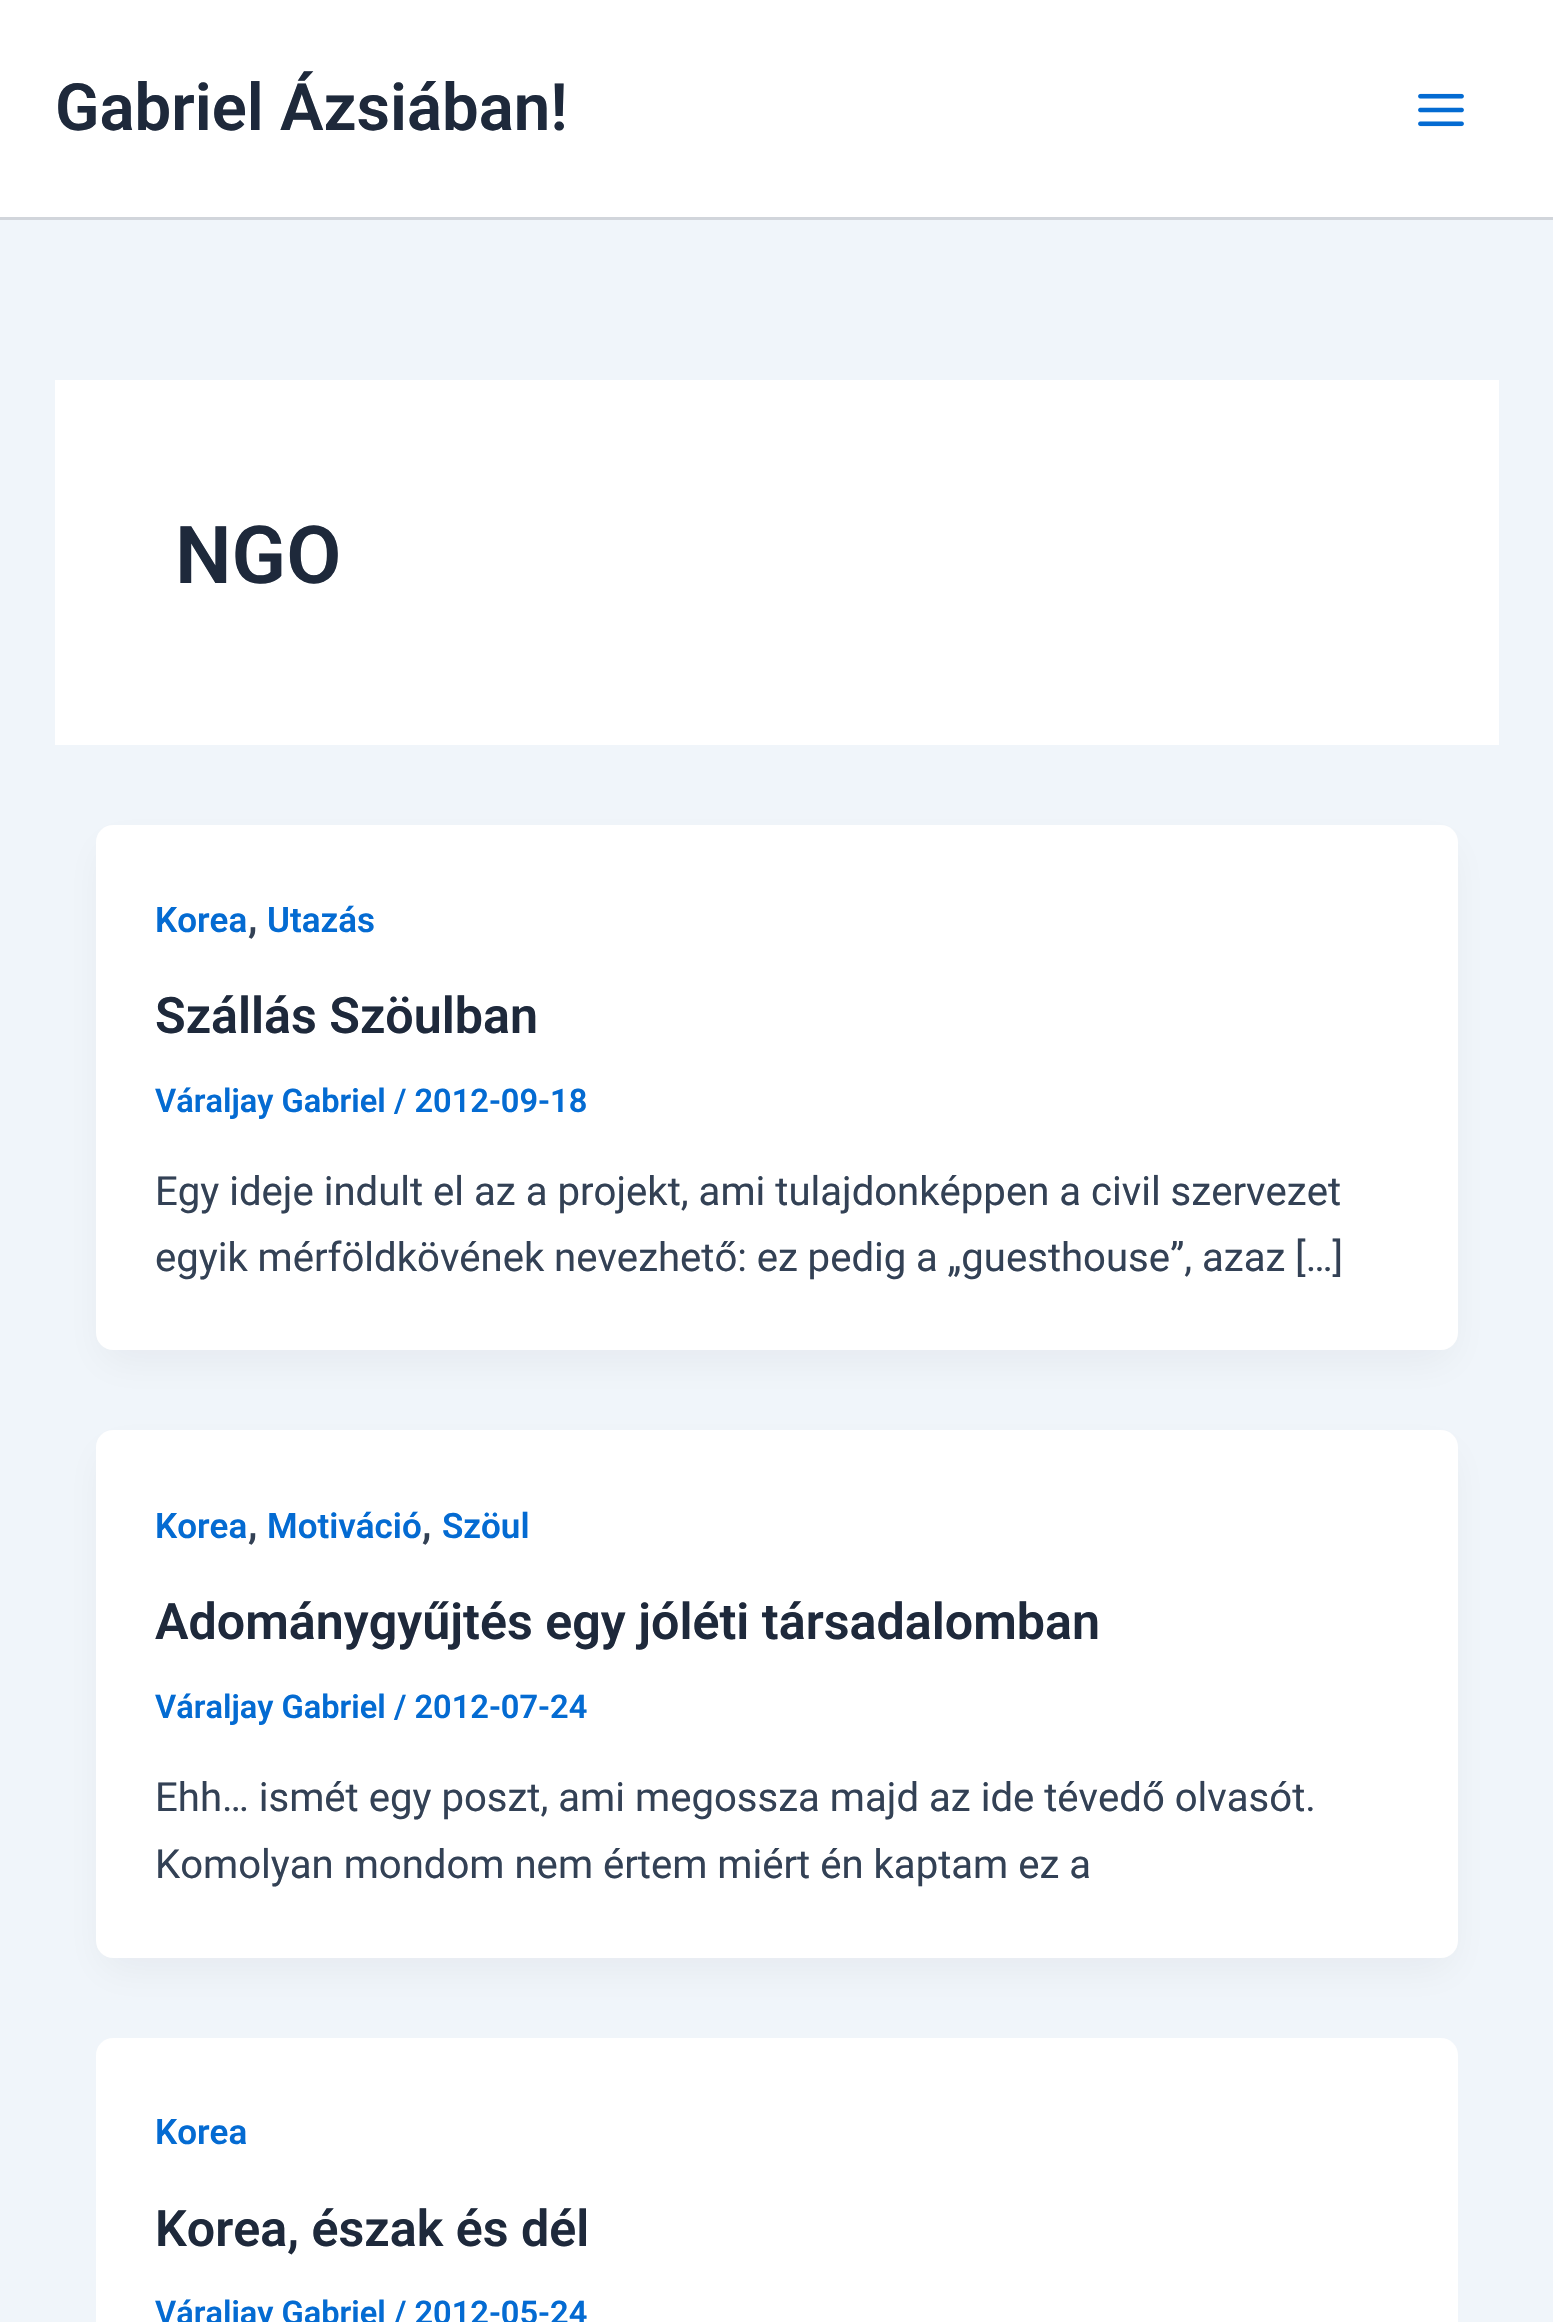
void draw(SkCanvas* c) {
SkPaint p;
p.setAntiAlias(true);
auto F=[&](const char* family, int weight, float size, bool italic = false){SkFontStyle style(weight, SkFontStyle::kNormal_Width,italic ? SkFontStyle::kItalic_Slant : SkFontStyle::kUpright_Slant);SkFont result(fontMgr->matchFamilyStyle(family, style), size);result.setSubpixel(true);return result;};
auto T=[&](const char* s, float x, float y, const SkFont& font){c->drawString(s, x, y, font, p);};
auto L=[&](const char* s, float x, float y, const SkFont& font, const SkPaint& ink, float letter, float word){std::vector<SkGlyphID> glyphs(font.countText(s, strlen(s), SkTextEncoding::kUTF8));std::vector<float> xs(glyphs.size());font.textToGlyphs(s, strlen(s), SkTextEncoding::kUTF8, glyphs);font.getXPos(glyphs, xs, x);float extra = 0;for (size_t i = 0; i < glyphs.size(); i++) {xs[i] += extra;extra += letter + word * (glyphs[i] == font.unicharToGlyph(' '));}c->drawTextBlob(SkTextBlob::MakeFromPosHGlyphs(glyphs, xs, y, font), 0, 0, ink);};
auto R=[&](float x, float y, float w, float h){c->drawRect(SkRect::MakeXYWH(x, y, w, h), p);};
auto Q=[&](float x, float y, float w, float h, float radius){c->drawRoundRect(SkRect::MakeXYWH(x, y, w, h), radius, radius, p);};
auto I=[&](const char* path, float x, float y, float w, float h){auto image = SkImages::DeferredFromEncodedData(SkData::MakeFromFileName(path));c->drawImageRect(image, SkRect::MakeXYWH(x, y, w, h), SkSamplingOptions());};
c->clear(0xfff0f5fa);
p.setColor(0xffffffff);
R(0,0,1553,217);
p.setColor(0xffd1d5db);
R(0,217,1553,3);
auto f1 = F("Roboto",600,65.25);
p.setColor(0xff1e293b);
T("Gabriel Ázsiában!",55,130,f1);
I("1.png",1418,93,46,34);
p.setColor(0xffffffff);
R(55,380,1444,365);
auto f2 = F("Roboto",600,80);
p.setColor(0xff1e293b);
T("NGO",175,583,f2);
p.setColor(0x0d101828);
p.setMaskFilter(SkMaskFilter::MakeBlur(kNormal_SkBlurStyle, 20.5));
c->drawRoundRect(SkRect::MakeXYWH(102,847,1350,514),11,11,p);
p.setMaskFilter(nullptr);
p.setColor(0xffffffff);
Q(96,825,1362,525,17);
auto f3 = F("Roboto",600,35);
p.setColor(0xff046bd2);
T("Korea",155,932,f3);
auto f4 = F("Roboto",600,40.1);
p.setColor(0xff334155);
T(",",248,932,f4);
p.setColor(0xff046bd2);
T("Utazás",267,932,f3);
auto f5 = F("Roboto",600,50.2);
p.setColor(0xff1e293b);
T("Szállás Szöulban",155,1033,f5);
auto f6 = F("Roboto",600,32.6);
p.setColor(0xff046bd2);
T("Váraljay Gabriel / 2012-09-18",155,1112,f6);
auto f7 = F("Roboto",400,40.1);
p.setColor(0xff334155);
T("Egy ideje indult el az a projekt, ami tulajdonképpen a civil szervezet",155,1205,f7);
L("egyik mérföldkövének nevezhető: ez pedig a „guesthouse”, azaz […]",155,1271,f7,p,0,-.25);
p.setColor(0x0d101828);
p.setMaskFilter(SkMaskFilter::MakeBlur(kNormal_SkBlurStyle, 20.5));
c->drawRoundRect(SkRect::MakeXYWH(102,1452,1350,517),11,11,p);
p.setMaskFilter(nullptr);
p.setColor(0xffffffff);
Q(96,1430,1362,528,17);
p.setColor(0xff046bd2);
T("Korea",155,1538,f3);
p.setColor(0xff334155);
T(",",248,1538,f4);
p.setColor(0xff046bd2);
T("Motiváció",267,1538,f3);
p.setColor(0xff334155);
T(",",422,1538,f4);
p.setColor(0xff046bd2);
T("Szöul",442,1538,f3);
p.setColor(0xff1e293b);
T("Adománygyűjtés egy jóléti társadalomban",155,1639,f5);
p.setColor(0xff046bd2);
T("Váraljay Gabriel / 2012-07-24",155,1718,f6);
p.setColor(0xff334155);
T("Ehh… ismét egy poszt, ami megossza majd az ide tévedő olvasót.",155,1811,f7);
T("Komolyan mondom nem értem miért én kaptam ez a",155,1878,f7);
p.setColor(0xffffffff);
Q(96,2038,1362,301,17);
p.setColor(0xff046bd2);
T("Korea",155,2144,f3);
p.setColor(0xff1e293b);
T("Korea, észak és dél",155,2246,f5);
p.setColor(0xff046bd2);
T("Váraljay Gabriel / 2012-05-24",155,2324,f6);
}
